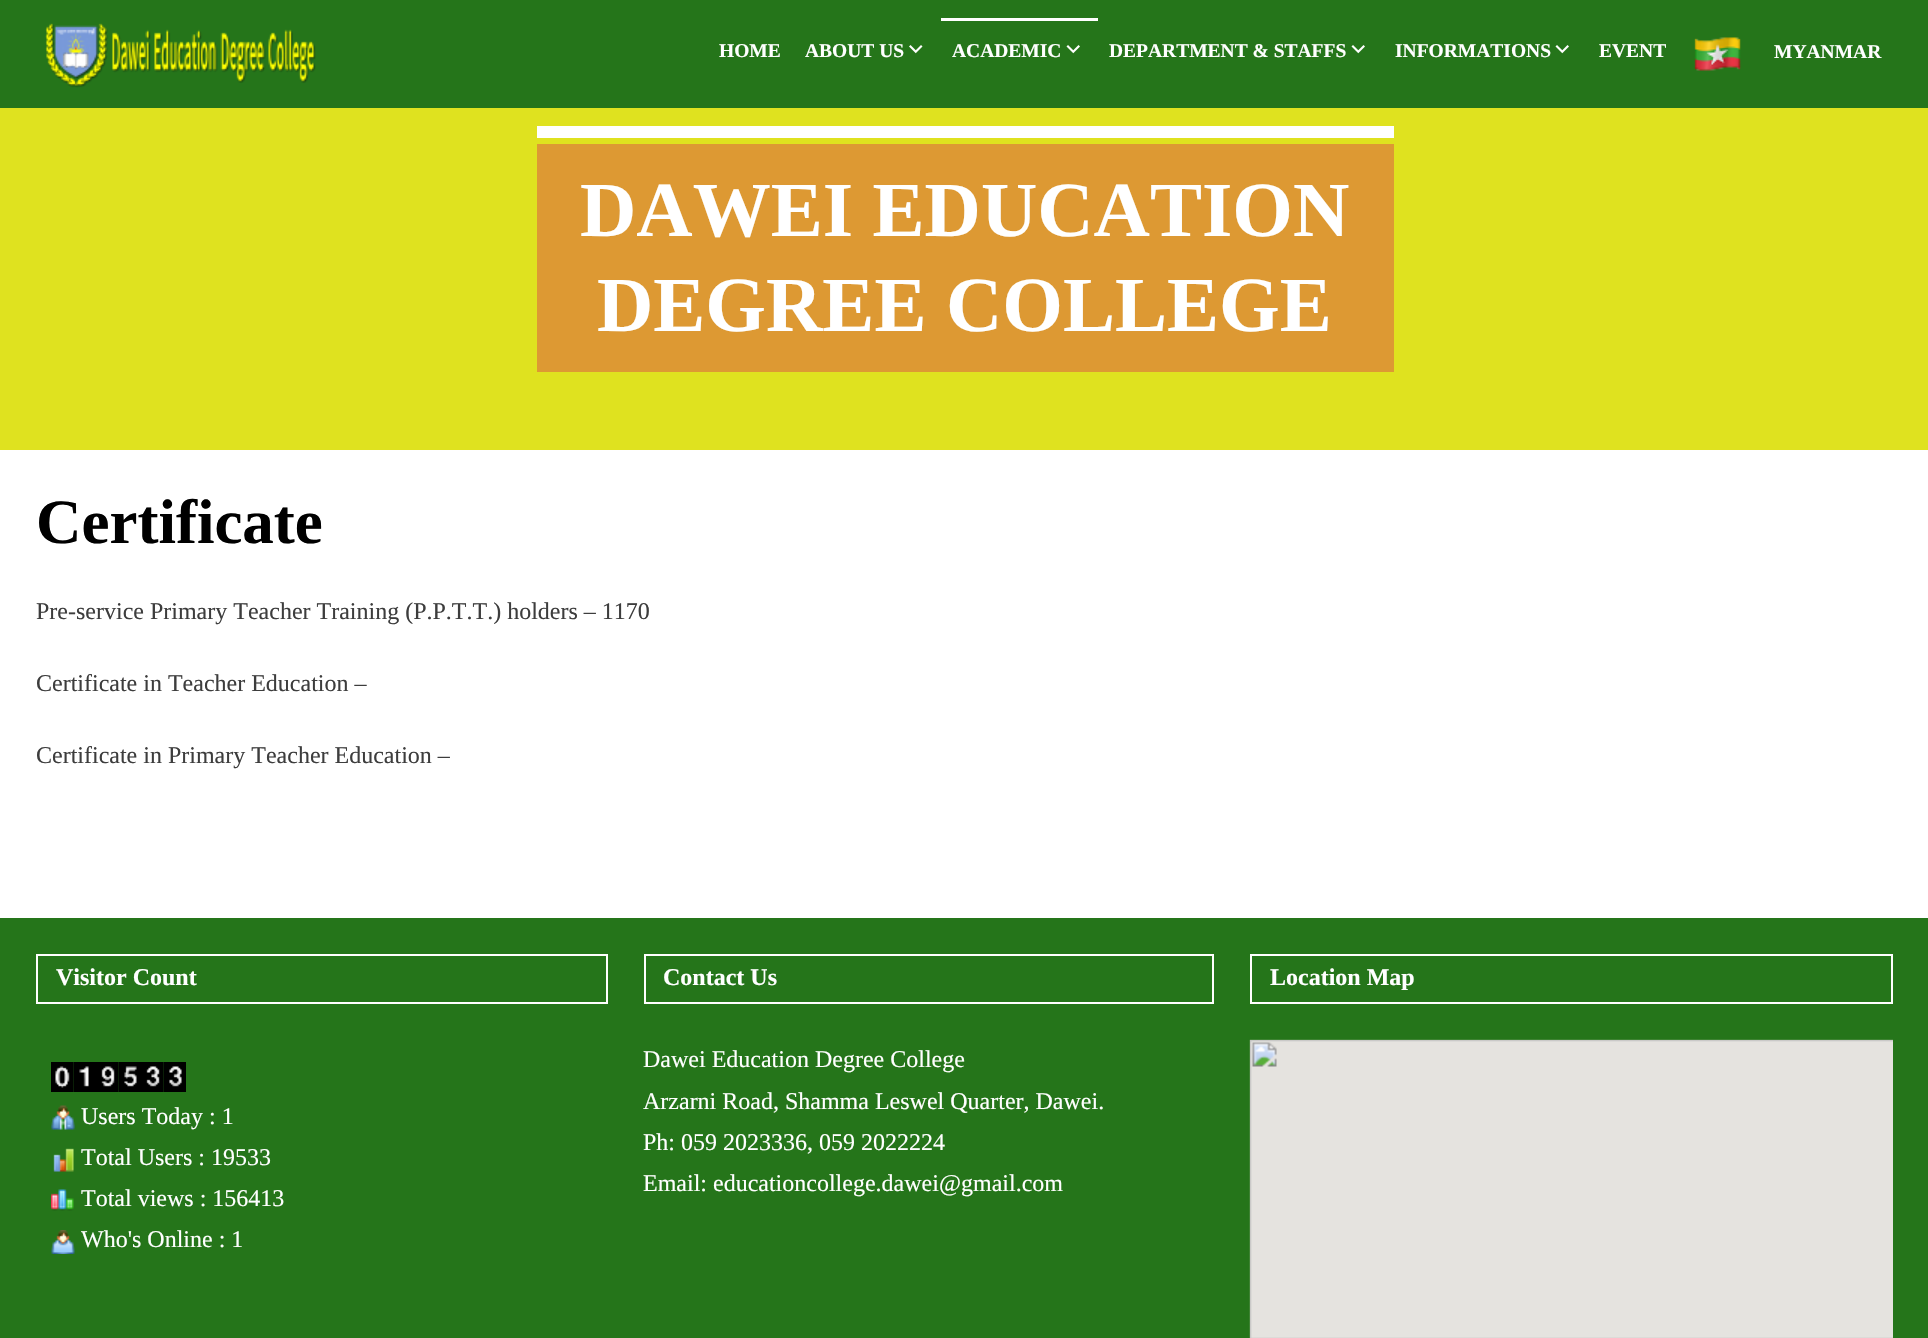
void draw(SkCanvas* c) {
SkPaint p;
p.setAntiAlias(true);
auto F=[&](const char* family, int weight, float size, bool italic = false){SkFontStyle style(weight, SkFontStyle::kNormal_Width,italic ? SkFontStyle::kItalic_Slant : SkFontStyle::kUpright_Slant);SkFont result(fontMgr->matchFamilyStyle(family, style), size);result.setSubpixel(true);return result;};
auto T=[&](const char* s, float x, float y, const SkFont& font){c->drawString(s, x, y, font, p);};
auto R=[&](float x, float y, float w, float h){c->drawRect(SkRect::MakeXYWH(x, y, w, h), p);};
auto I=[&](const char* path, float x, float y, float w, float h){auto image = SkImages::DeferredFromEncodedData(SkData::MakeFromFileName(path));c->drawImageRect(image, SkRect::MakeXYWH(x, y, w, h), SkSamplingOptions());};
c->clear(0xffffffff);
p.setColor(0xff25751a);
R(0,0,1928,108);
I("1.png",45,23,271,65);
auto f1 = F("Liberation Serif",700,19.5);
p.setColor(0xffffffff);
T("HOME",719,57,f1);
T("ABOUT US",805,57,f1);
I("2.png",909,45,14,9);
R(941,18,157,3);
T("ACADEMIC",952,57,f1);
I("3.png",1066,45,14,9);
T("DEPARTMENT & STAFFS",1109,57,f1);
I("3.png",1351,45,14,9);
T("INFORMATIONS",1395,57,f1);
I("3.png",1555,45,14,9);
T("EVENT",1599,57,f1);
I("4.png",1694,37,47,34);
T("MYANMAR",1774,58,f1);
p.setColor(0xffdfe21f);
R(0,108,1928,342);
p.setColor(0xffdd9933);
R(537,144,857,228);
p.setColor(0xffffffff);
R(537,126,857,12);
auto f2 = F("Liberation Serif",700,78);
T("DAWEI EDUCATION",580,236,f2);
T("DEGREE COLLEGE",597,331,f2);
auto f3 = F("Liberation Serif",700,63);
p.setColor(0xff000000);
T("Certificate",36,543,f3);
auto f4 = F("Liberation Serif",400,24);
p.setColor(0xff3d3d3d);
T("Pre-service Primary Teacher Training (P.P.T.T.) holders – 1170",36,619,f4);
T("Certificate in Teacher Education –",36,691,f4);
T("Certificate in Primary Teacher Education –",36,763,f4);
p.setColor(0xff25751a);
R(0,918,1928,420);
p.setStroke(true);
p.setStrokeWidth(2);
p.setColor(0xffffffff);
c->drawRect(SkRect::MakeXYWH(37,955,570,48),p);
auto f5 = F("Liberation Serif",700,24);
p.setStroke(false);
T("Visitor Count",56,985,f5);
I("5.png",51,1062,23,30);
I("6.png",73,1062,23,30);
I("7.png",96,1062,23,30);
I("8.png",118,1062,23,30);
I("9.png",141,1062,23,30);
I("10.png",163,1062,23,30);
I("11.png",51,1105,24,25);
T("Users Today : 1",81,1124,f4);
I("12.png",53,1148,21,24);
T("Total Users : 19533",81,1165,f4);
I("13.png",51,1189,23,22);
T("Total views : 156413",81,1206,f4);
I("14.png",51,1230,24,24);
T("Who's Online : 1",81,1247,f4);
p.setStroke(true);
c->drawRect(SkRect::MakeXYWH(645,955,568,48),p);
p.setStroke(false);
T("Contact Us",663,985,f5);
T("Dawei Education Degree College",643,1067,f4);
T("Arzarni Road, Shamma Leswel Quarter, Dawei.",643,1109,f4);
T("Ph: 059 2023336, 059 2022224",643,1150,f4);
T("Email: educationcollege.dawei@gmail.com",643,1191,f4);
p.setStroke(true);
c->drawRect(SkRect::MakeXYWH(1251,955,641,48),p);
p.setStroke(false);
T("Location Map",1270,985,f5);
I("15.png",1249,1039,644,299);
}
